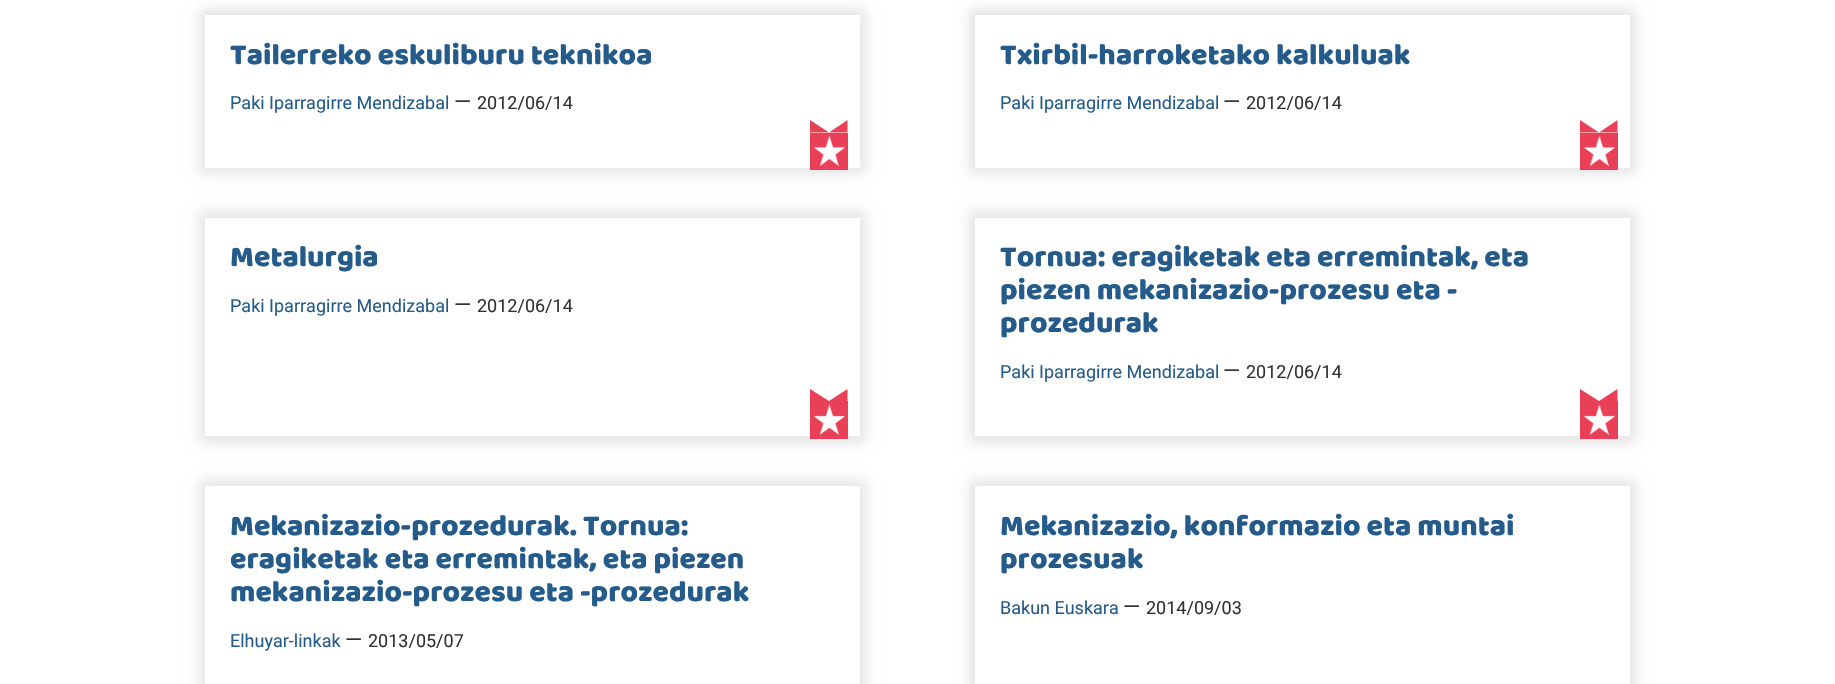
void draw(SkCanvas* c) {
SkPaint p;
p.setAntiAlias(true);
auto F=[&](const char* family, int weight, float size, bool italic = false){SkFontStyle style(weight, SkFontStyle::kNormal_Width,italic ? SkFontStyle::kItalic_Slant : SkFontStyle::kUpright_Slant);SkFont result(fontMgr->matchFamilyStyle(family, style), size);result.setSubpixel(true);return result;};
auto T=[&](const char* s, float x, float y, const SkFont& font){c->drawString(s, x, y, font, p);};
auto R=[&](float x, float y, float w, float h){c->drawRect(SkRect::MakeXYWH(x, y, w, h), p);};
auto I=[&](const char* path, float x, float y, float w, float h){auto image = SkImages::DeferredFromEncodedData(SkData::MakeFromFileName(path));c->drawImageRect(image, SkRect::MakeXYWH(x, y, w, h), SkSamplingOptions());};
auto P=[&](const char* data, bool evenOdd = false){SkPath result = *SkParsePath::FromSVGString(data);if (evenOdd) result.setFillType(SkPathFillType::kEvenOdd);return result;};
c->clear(0xffffffff);
c->save();
c->clipPath(P("M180 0h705v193h-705zm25 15h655v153h-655z",true),true);
p.setColor(0x1a000000);
p.setMaskFilter(SkMaskFilter::MakeBlur(kNormal_SkBlurStyle, 6));
c->drawRect(SkRect::MakeXYWH(199,9,667,165),p);
p.setMaskFilter(nullptr);
c->restore();
auto f1 = F("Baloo",400,30);
p.setColor(0xff245b8a);
T("Tailerreko eskuliburu teknikoa",230,64,f1);
auto f2 = F("Roboto",400,18);
T("Paki Iparragirre Mendizabal",230,109,f2);
auto f3 = F("Roboto",400,22);
p.setColor(0xff333333);
T("—",454,109,f3);
T("2012/06/14",477,109,f2);
p.setColor(0xffe94057);
c->drawPath(P("M847.5 120v12.5h-18.5zm-37.5 12.5v-12.5l19 12.5z"),p);
R(810,133,38,37);
I("1.png",813,136,32,30);
c->save();
c->clipPath(P("M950 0h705v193h-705zm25 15h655v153h-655z",true),true);
p.setColor(0x1a000000);
p.setMaskFilter(SkMaskFilter::MakeBlur(kNormal_SkBlurStyle, 6));
c->drawRect(SkRect::MakeXYWH(969,9,667,165),p);
p.setMaskFilter(nullptr);
c->restore();
p.setColor(0xff245b8a);
T("Txirbil-harroketako kalkuluak",1000,64,f1);
T("Paki Iparragirre Mendizabal",1000,109,f2);
p.setColor(0xff333333);
T("—",1223,109,f3);
T("2012/06/14",1246,109,f2);
p.setColor(0xffe94057);
c->drawPath(P("M1617.5 120v12.5h-18.5zm-37.5 12.5v-12.5l19 12.5z"),p);
R(1580,133,38,37);
I("1.png",1583,136,32,30);
c->save();
c->clipPath(P("M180 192h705v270h-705zm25 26h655v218h-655z",true),true);
p.setColor(0x1a000000);
p.setMaskFilter(SkMaskFilter::MakeBlur(kNormal_SkBlurStyle, 6));
c->drawRect(SkRect::MakeXYWH(199,211,667,232),p);
p.setMaskFilter(nullptr);
c->restore();
p.setColor(0xff245b8a);
T("Metalurgia",230,266,f1);
T("Paki Iparragirre Mendizabal",230,312,f2);
p.setColor(0xff333333);
T("—",454,312,f3);
T("2012/06/14",477,312,f2);
p.setColor(0xffe94057);
c->drawPath(P("M847.5 389v12h-18.5zm-37.5 12v-12l19 12z"),p);
R(810,401,38,38);
I("2.png",813,404,32,31);
c->save();
c->clipPath(P("M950 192h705v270h-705zm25 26h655v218h-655z",true),true);
p.setColor(0x1a000000);
p.setMaskFilter(SkMaskFilter::MakeBlur(kNormal_SkBlurStyle, 6));
c->drawRect(SkRect::MakeXYWH(969,211,667,232),p);
p.setMaskFilter(nullptr);
c->restore();
p.setColor(0xff245b8a);
T("Tornua: eragiketak eta erremintak, eta",1000,266,f1);
T("piezen mekanizazio-prozesu eta -",1000,299,f1);
T("prozedurak",1000,332,f1);
T("Paki Iparragirre Mendizabal",1000,378,f2);
p.setColor(0xff333333);
T("—",1223,378,f3);
T("2012/06/14",1246,378,f2);
p.setColor(0xffe94057);
c->drawPath(P("M1617.5 389v12h-18.5zm-37.5 12v-12l19 12z"),p);
R(1580,401,38,38);
I("2.png",1583,404,32,31);
c->save();
c->clipPath(P("M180 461h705v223h-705zm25 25h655v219h-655z",true),true);
p.setColor(0x1a000000);
p.setMaskFilter(SkMaskFilter::MakeBlur(kNormal_SkBlurStyle, 6));
c->drawRect(SkRect::MakeXYWH(199,480,667,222),p);
p.setMaskFilter(nullptr);
c->restore();
p.setColor(0xff245b8a);
T("Mekanizazio-prozedurak. Tornua:",230,535,f1);
T("eragiketak eta erremintak, eta piezen",230,568,f1);
T("mekanizazio-prozesu eta -prozedurak",230,601,f1);
T("Elhuyar-linkak",230,647,f2);
p.setColor(0xff333333);
T("—",345,647,f3);
T("2013/05/07",368,647,f2);
c->save();
c->clipPath(P("M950 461h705v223h-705zm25 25h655v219h-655z",true),true);
p.setColor(0x1a000000);
p.setMaskFilter(SkMaskFilter::MakeBlur(kNormal_SkBlurStyle, 6));
c->drawRect(SkRect::MakeXYWH(969,480,667,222),p);
p.setMaskFilter(nullptr);
c->restore();
p.setColor(0xff245b8a);
T("Mekanizazio, konformazio eta muntai",1000,535,f1);
T("prozesuak",1000,568,f1);
T("Bakun Euskara",1000,614,f2);
p.setColor(0xff333333);
T("—",1123,614,f3);
T("2014/09/03",1146,614,f2);
}
